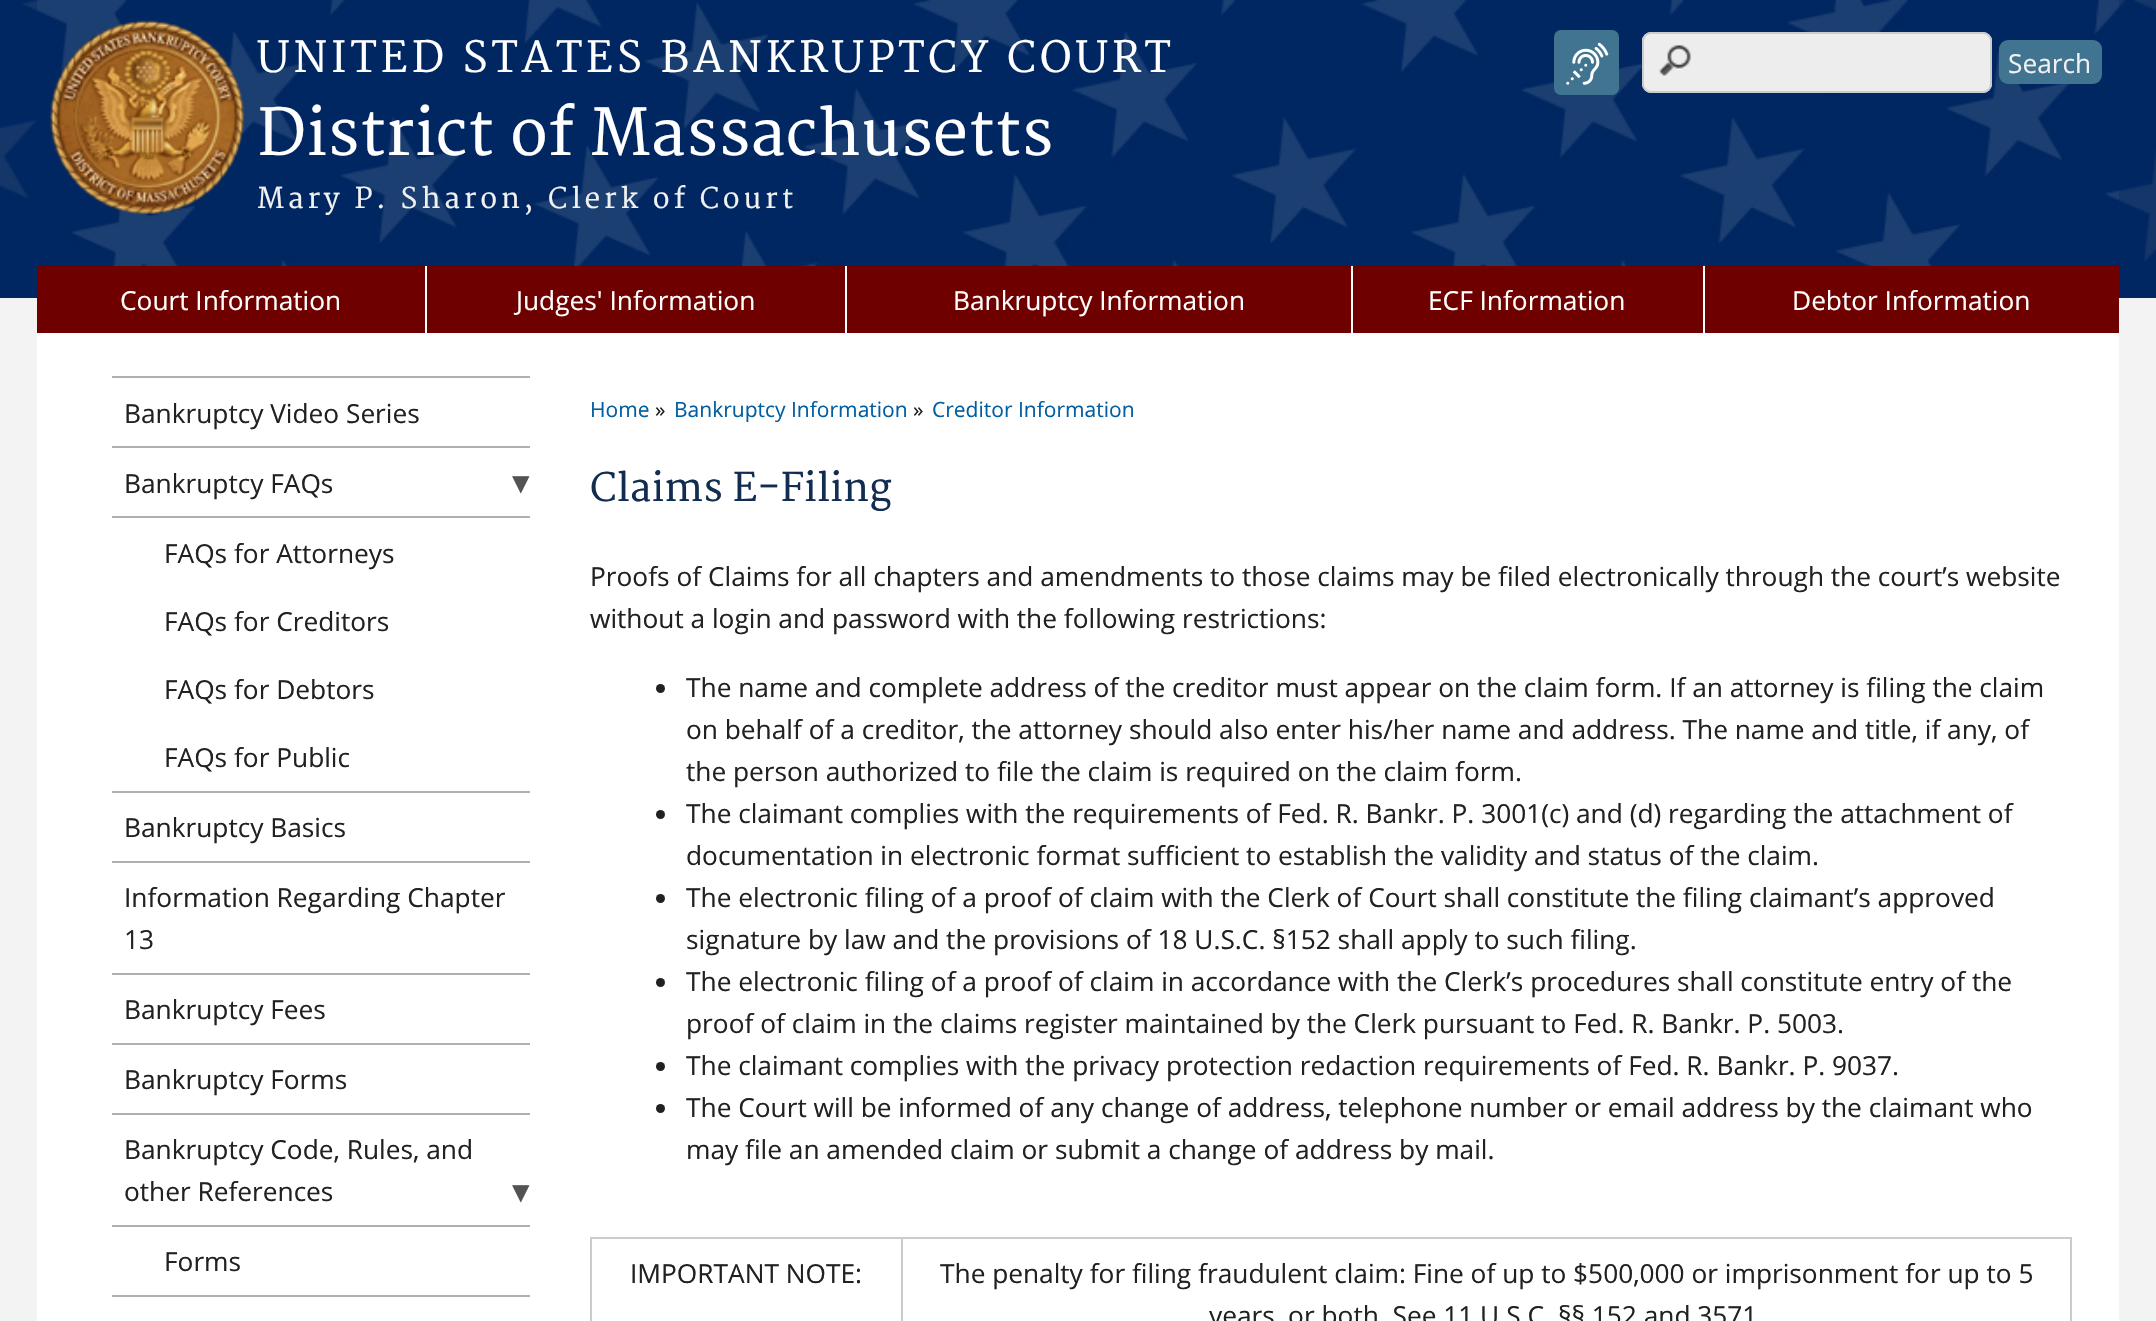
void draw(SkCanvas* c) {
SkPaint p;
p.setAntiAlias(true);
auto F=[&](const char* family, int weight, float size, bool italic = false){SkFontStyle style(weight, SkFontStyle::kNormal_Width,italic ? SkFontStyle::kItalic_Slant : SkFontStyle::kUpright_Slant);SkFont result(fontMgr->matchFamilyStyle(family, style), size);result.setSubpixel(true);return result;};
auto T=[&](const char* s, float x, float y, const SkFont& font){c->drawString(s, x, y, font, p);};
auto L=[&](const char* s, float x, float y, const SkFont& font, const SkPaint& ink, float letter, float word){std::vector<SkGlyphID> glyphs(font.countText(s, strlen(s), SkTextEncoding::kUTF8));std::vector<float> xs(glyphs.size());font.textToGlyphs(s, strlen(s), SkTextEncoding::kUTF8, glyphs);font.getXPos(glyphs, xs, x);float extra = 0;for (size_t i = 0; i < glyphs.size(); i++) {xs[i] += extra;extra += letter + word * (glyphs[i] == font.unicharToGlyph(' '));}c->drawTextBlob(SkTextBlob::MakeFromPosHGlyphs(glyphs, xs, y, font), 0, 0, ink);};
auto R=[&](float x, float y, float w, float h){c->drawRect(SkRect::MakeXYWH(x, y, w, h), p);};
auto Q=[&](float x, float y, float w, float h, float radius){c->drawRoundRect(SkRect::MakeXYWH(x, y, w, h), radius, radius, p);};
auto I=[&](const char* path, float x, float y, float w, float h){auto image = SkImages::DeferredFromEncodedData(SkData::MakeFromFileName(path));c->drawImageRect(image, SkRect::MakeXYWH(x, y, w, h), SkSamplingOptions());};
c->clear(0xfff3f3f3);
p.setColor(0xff002762);
R(0,0,2156,298);
I("1.png",0,0,2156,262);
p.setColor(0xffffffff);
R(37,333,2082,988);
I("2.png",37,0,2082,266);
I("3.png",50,20,194,194);
auto f1 = F("Merriweather",400,42);
L("UNITED STATES BANKRUPTCY COURT",257,72,f1,p,3.85,0);
auto f2 = F("Merriweather",400,63);
T("District of Massachusetts",257,155,f2);
auto f3 = F("Merriweather",400,28);
p.setColor(0xfff1f1f1);
L("Mary P. Sharon, Clerk of Court",257,208,f3,p,3.85,0);
p.setColor(0xff417491);
Q(1554,30,65,65,7);
I("4.png",1566,42,43,43);
p.setColor(0xffededed);
Q(1642,32,350,61,9);
I("5.png",1659,45,32,32);
p.setStroke(true);
p.setStrokeWidth(2);
p.setColor(0xffcccccc);
c->drawRoundRect(SkRect::MakeXYWH(1643,33,348,59),8,8,p);
p.setStroke(false);
p.setColor(0xff417491);
Q(1999,40,103,44,9);
auto f4 = F("Open Sans",400,26.25);
p.setColor(0xfff1f1f1);
T("Search",2008,73,f4);
p.setColor(0xff6e0000);
R(37,266,2082,67);
p.setColor(0xffffffff);
R(425,266,2,67);
T("Court Information",120,310,f4);
R(845,266,2,67);
T("Judges' Information",516,310,f4);
R(1351,266,2,67);
T("Bankruptcy Information",953,310,f4);
R(1703,266,2,67);
T("ECF Information",1428,310,f4);
T("Debtor Information",1792,310,f4);
p.setColor(0xffaeb0b5);
R(112,376,418,2);
p.setColor(0xff212121);
T("Bankruptcy Video Series",124,423,f4);
p.setColor(0xffaeb0b5);
R(112,446,418,2);
p.setColor(0xff212121);
T("Bankruptcy FAQs",124,493,f4);
auto f5 = F("DejaVu Sans",400,35);
p.setColor(0xff535353);
T("▾",512,494,f5);
p.setColor(0xffaeb0b5);
R(112,516,418,2);
p.setColor(0xff212121);
T("FAQs for Attorneys",164,563,f4);
T("FAQs for Creditors",164,631,f4);
T("FAQs for Debtors",164,699,f4);
T("FAQs for Public",164,767,f4);
p.setColor(0xffaeb0b5);
R(112,791,418,2);
p.setColor(0xff212121);
T("Bankruptcy Basics",124,837,f4);
p.setColor(0xffaeb0b5);
R(112,861,418,2);
p.setColor(0xff212121);
T("Information Regarding Chapter",124,907,f4);
T("13",124,949,f4);
p.setColor(0xffaeb0b5);
R(112,973,418,2);
p.setColor(0xff212121);
T("Bankruptcy Fees",124,1019,f4);
p.setColor(0xffaeb0b5);
R(112,1043,418,2);
p.setColor(0xff212121);
T("Bankruptcy Forms",124,1089,f4);
p.setColor(0xffaeb0b5);
R(112,1113,418,2);
p.setColor(0xff212121);
T("Bankruptcy Code, Rules, and",124,1159,f4);
T("other References",124,1201,f4);
p.setColor(0xff535353);
T("▾",512,1203,f5);
p.setColor(0xffaeb0b5);
R(112,1225,418,2);
p.setColor(0xff212121);
T("Forms",164,1271,f4);
p.setColor(0xffaeb0b5);
R(112,1295,418,2);
auto f6 = F("Open Sans",400,21);
p.setColor(0xff005ea2);
T("Home",590,417,f6);
p.setColor(0xff212121);
T("»",655,417,f6);
p.setColor(0xff005ea2);
T("Bankruptcy Information",674,417,f6);
p.setColor(0xff212121);
T("»",913,417,f6);
p.setColor(0xff005ea2);
T("Creditor Information",932,417,f6);
auto f7 = F("Merriweather",400,38.5);
p.setColor(0xff112e51);
T("Claims E-Filing",590,501,f7);
p.setColor(0xff212121);
T("Proofs of Claims for all chapters and amendments to those claims may be filed electronically through the court’s website",590,586,f4);
T("without a login and password with the following restrictions:",590,628,f4);
c->drawCircle(660.5,688.5,4.5,p);
T("The name and complete address of the creditor must appear on the claim form. If an attorney is filing the claim",686,697,f4);
T("on behalf of a creditor, the attorney should also enter his/her name and address. The name and title, if any, of",686,739,f4);
T("the person authorized to file the claim is required on the claim form.",686,781,f4);
c->drawCircle(660.5,814.5,4.5,p);
T("The claimant complies with the requirements of Fed. R. Bankr. P. 3001(c) and (d) regarding the attachment of",686,823,f4);
T("documentation in electronic format sufficient to establish the validity and status of the claim.",686,865,f4);
c->drawCircle(660.5,898.5,4.5,p);
T("The electronic filing of a proof of claim with the Clerk of Court shall constitute the filing claimant’s approved",686,907,f4);
T("signature by law and the provisions of 18 U.S.C. §152 shall apply to such filing.",686,949,f4);
c->drawCircle(660.5,982.5,4.5,p);
T("The electronic filing of a proof of claim in accordance with the Clerk’s procedures shall constitute entry of the",686,991,f4);
T("proof of claim in the claims register maintained by the Clerk pursuant to Fed. R. Bankr. P. 5003.",686,1033,f4);
c->drawCircle(660.5,1066.5,4.5,p);
T("The claimant complies with the privacy protection redaction requirements of Fed. R. Bankr. P. 9037.",686,1075,f4);
c->drawCircle(660.5,1108.5,4.5,p);
T("The Court will be informed of any change of address, telephone number or email address by the claimant who",686,1117,f4);
T("may file an amended claim or submit a change of address by mail.",686,1159,f4);
p.setColor(0xffcccccc);
R(590,1237,1482,2);
R(2070,1237,2,84);
R(590,1237,2,84);
p.setColor(0xff212121);
T("IMPORTANT NOTE:",630,1283,f4);
p.setColor(0xffcccccc);
R(901,1237,2,84);
p.setColor(0xff212121);
T("The penalty for filing fraudulent claim: Fine of up to $500,000 or imprisonment for up to 5",940,1283,f4);
T("years, or both. See 11 U.S.C. §§ 152 and 3571",1209,1325,f4);
}
